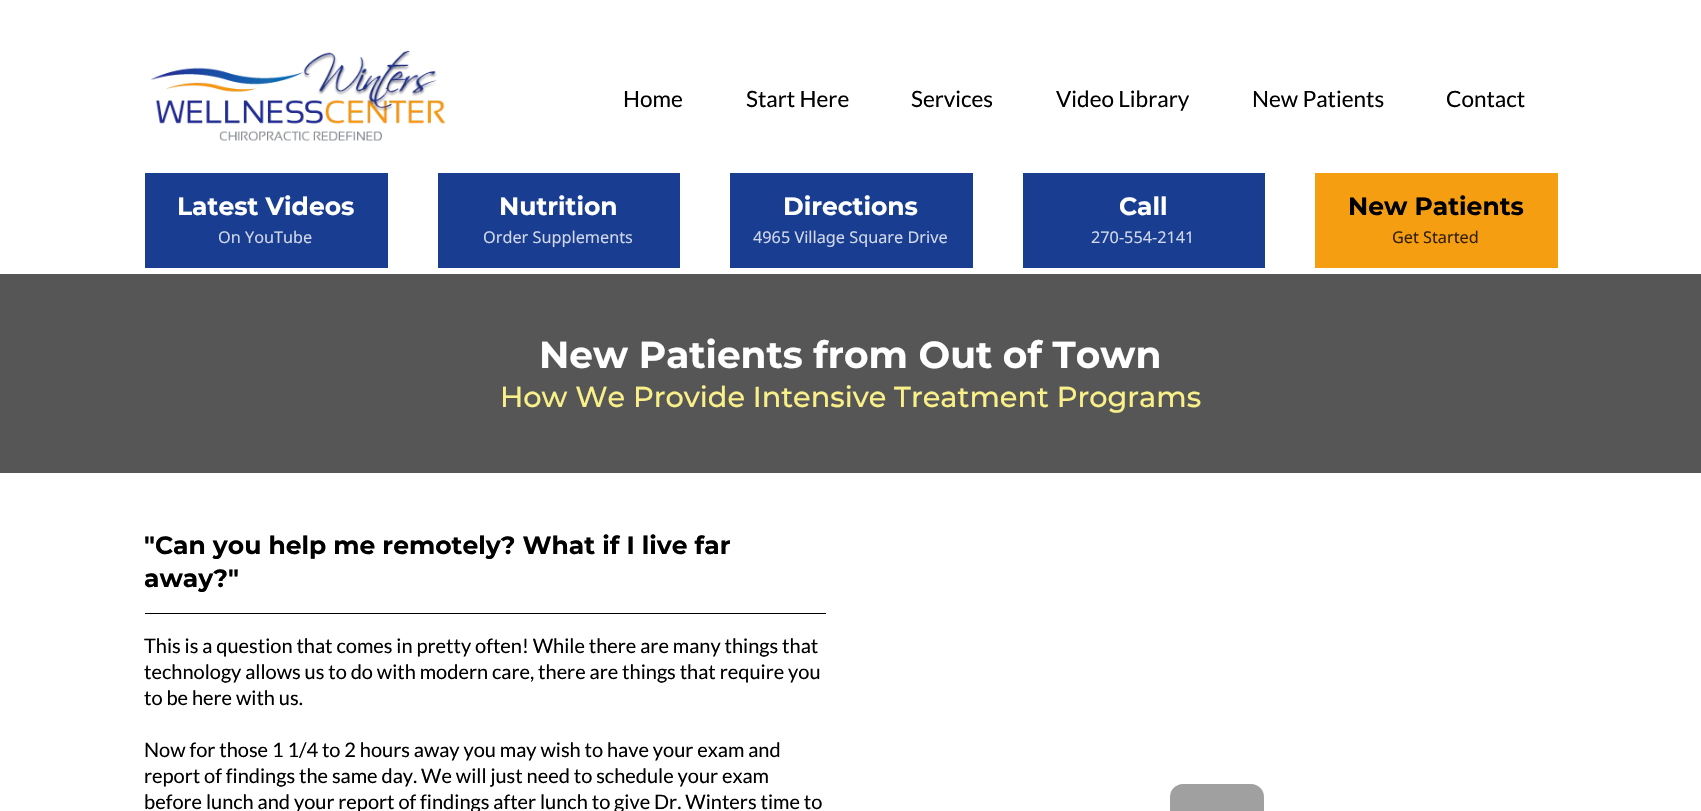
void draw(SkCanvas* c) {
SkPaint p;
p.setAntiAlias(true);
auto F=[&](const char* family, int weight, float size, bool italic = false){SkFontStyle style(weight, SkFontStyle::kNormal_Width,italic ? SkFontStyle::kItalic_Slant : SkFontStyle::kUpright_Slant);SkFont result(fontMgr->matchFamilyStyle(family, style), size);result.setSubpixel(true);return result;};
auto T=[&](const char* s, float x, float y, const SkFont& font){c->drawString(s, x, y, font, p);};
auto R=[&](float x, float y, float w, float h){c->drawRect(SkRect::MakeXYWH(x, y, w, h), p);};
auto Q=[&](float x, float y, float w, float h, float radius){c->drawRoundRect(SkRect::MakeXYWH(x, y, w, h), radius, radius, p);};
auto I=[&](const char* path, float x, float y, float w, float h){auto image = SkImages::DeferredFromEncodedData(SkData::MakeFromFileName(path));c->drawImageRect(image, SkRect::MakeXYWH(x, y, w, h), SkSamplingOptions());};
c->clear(0xffffffff);
I("1.png",151,50,295,91);
auto f1 = F("Lato",400,22.5);
p.setColor(0xff000000);
T("Home",623,107,f1);
T("Start Here",746,107,f1);
T("Services",911,107,f1);
T("Video Library",1056,107,f1);
T("New Patients",1252,107,f1);
T("Contact",1446,107,f1);
p.setColor(0xff193d91);
R(145,173,243,95);
auto f2 = F("Montserrat",700,25);
p.setColor(0xffffffff);
T("Latest Videos",177,215,f2);
auto f3 = F("Noto Sans",400,16.25);
p.setColor(0xffd1d8e9);
T("On YouTube",218,243,f3);
p.setColor(0xff193d91);
R(438,173,242,95);
p.setColor(0xffffffff);
T("Nutrition",499,215,f2);
p.setColor(0xffd1d8e9);
T("Order Supplements",483,243,f3);
p.setColor(0xff193d91);
R(730,173,243,95);
p.setColor(0xffffffff);
T("Directions",783,215,f2);
p.setColor(0xffd1d8e9);
T("4965 Village Square Drive",753,243,f3);
p.setColor(0xff193d91);
R(1023,173,242,95);
p.setColor(0xffffffff);
T("Call",1119,215,f2);
p.setColor(0xffd1d8e9);
T("270-554-2141",1091,243,f3);
p.setColor(0xfff69e12);
R(1315,173,243,95);
p.setColor(0xff000000);
T("New Patients",1348,215,f2);
p.setColor(0xff312004);
T("Get Started",1392,243,f3);
p.setColor(0xff565656);
R(0,274,1701,199);
auto f4 = F("Montserrat",700,37.5);
p.setColor(0xffffffff);
T("New Patients from Out of Town",539,368,f4);
auto f5 = F("Montserrat",500,28.75);
p.setColor(0xfffaf089);
T("How We Provide Intensive Treatment Programs",500,407,f5);
p.setColor(0xff000000);
T("\"Can you help me remotely? What if I live far",144,554,f2);
T("away?\"",144,587,f2);
R(145,613,681,1);
auto f6 = F("Lato",400,20);
T("This is a question that comes in pretty often! While there are many things that",144,653,f6);
T("technology allows us to do with modern care, there are things that require you",144,679,f6);
T("to be here with us.",144,705,f6);
T("Now for those 1 1/4 to 2 hours away you may wish to have your exam and",144,757,f6);
T("report of findings the same day. We will just need to schedule your exam",144,783,f6);
T("before lunch and your report of findings after lunch to give Dr. Winters time to",144,809,f6);
p.setColor(0xffa0a0a0);
Q(1170,784,94,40,13);
}
